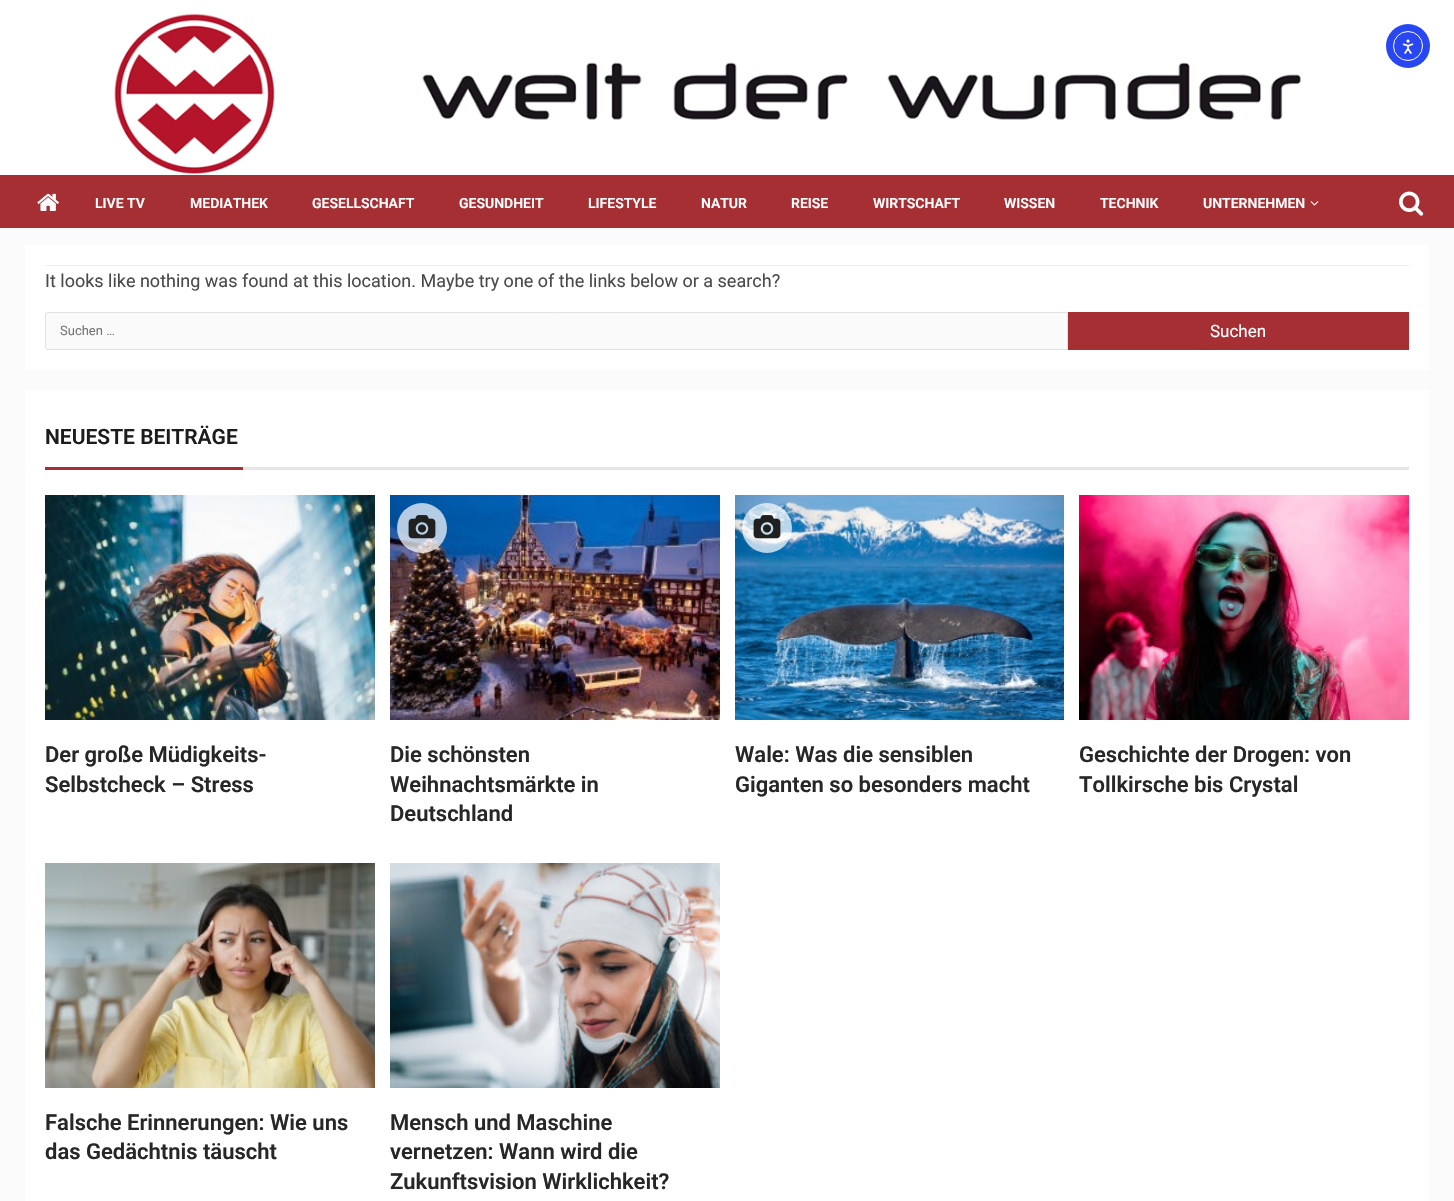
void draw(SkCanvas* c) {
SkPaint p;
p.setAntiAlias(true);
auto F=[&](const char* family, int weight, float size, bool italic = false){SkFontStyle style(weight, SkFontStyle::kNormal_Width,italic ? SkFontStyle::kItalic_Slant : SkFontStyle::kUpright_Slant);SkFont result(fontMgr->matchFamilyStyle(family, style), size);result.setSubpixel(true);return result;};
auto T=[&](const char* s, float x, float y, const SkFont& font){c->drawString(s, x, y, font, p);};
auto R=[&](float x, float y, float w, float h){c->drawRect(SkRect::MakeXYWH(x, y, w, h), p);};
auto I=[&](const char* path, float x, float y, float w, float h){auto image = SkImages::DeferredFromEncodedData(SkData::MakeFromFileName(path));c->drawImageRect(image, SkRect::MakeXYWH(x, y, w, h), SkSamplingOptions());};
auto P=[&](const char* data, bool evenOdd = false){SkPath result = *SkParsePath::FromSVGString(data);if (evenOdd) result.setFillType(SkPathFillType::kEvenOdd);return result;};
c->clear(0xfffbfbfb);
p.setColor(0xffffffff);
R(0,0,1454,175);
p.setColor(0xff2847f3);
c->drawCircle(1408,46,22,p);
p.setStroke(true);
p.setStrokeWidth(1);
p.setColor(0xffffffff);
c->drawCircle(1408,46,14.5,p);
I("1.png",1402,39,12,15);
I("2.png",114,13,1187,161);
p.setStroke(false);
p.setColor(0xffa52f33);
R(0,175,1454,53);
I("3.png",37,193,22,18);
auto f1 = F("Roboto",600,14);
p.setColor(0xffffffff);
T("LIVE TV",95,208,f1);
T("MEDIATHEK",190,208,f1);
T("GESELLSCHAFT",312,208,f1);
T("GESUNDHEIT",459,208,f1);
T("LIFESTYLE",588,208,f1);
T("NATUR",701,208,f1);
T("REISE",791,208,f1);
T("WIRTSCHAFT",873,208,f1);
T("WISSEN",1004,208,f1);
T("TECHNIK",1100,208,f1);
T("UNTERNEHMEN",1203,208,f1);
I("4.png",1310,201,9,5);
I("5.png",1399,191,25,25);
R(25,245,1404,125);
p.setColor(0xffeeeeee);
R(45,265,1364,1);
auto f2 = F("Roboto",400,18);
p.setColor(0xff4a4a4a);
T("It looks like nothing was found at this location. Maybe try one of the links below or a search?",45,287,f2);
p.setColor(0xfffafafa);
c->drawPath(P("M48 312.5h1019.5v37h-1019.5c-1.5 0-2.5-1-2.5-2.5v-32c0-1.5 1-2.5 2.5-2.5z"),p);
p.setStroke(true);
p.setColor(0xffe1e1e1);
c->drawPath(P("M48 312.5h1019.5v37h-1019.5c-1.5 0-2.5-1-2.5-2.5v-32c0-1.5 1-2.5 2.5-2.5z"),p);
auto f3 = F("Roboto",400,13);
p.setStroke(false);
p.setColor(0xff757575);
T("Suchen …",60,335,f3);
p.setColor(0xffa52f33);
R(1068,312,341,38);
auto f4 = F("Roboto",400,17);
p.setColor(0xffffffff);
T("Suchen",1210,337,f4);
R(25,390,1404,811);
auto f5 = F("Roboto",600,21);
p.setColor(0xff1c1c1c);
T("NEUESTE BEITRÄGE",45,444,f5);
p.setColor(0xffa52f33);
R(45,467,198,3);
p.setColor(0xffe6e6e6);
R(243,467,1166,3);
I("6.png",45,495,330,225);
auto f6 = F("Roboto",600,22);
p.setColor(0xff272727);
T("Der große Müdigkeits-",45,762,f6);
T("Selbstcheck – Stress",45,792,f6);
I("7.png",390,495,330,225);
p.setColor(0xb3ffffff);
c->drawCircle(422,528,25,p);
I("8.png",408,515,28,24);
p.setColor(0xff272727);
T("Die schönsten",390,762,f6);
T("Weihnachtsmärkte in",390,792,f6);
T("Deutschland",390,821,f6);
I("9.png",735,495,329,225);
p.setColor(0xb3ffffff);
c->drawCircle(767,528,25,p);
I("10.png",753,515,28,24);
p.setColor(0xff272727);
T("Wale: Was die sensiblen",735,762,f6);
T("Giganten so besonders macht",735,792,f6);
I("11.png",1079,495,330,225);
T("Geschichte der Drogen: von",1079,762,f6);
T("Tollkirsche bis Crystal",1079,792,f6);
I("12.png",45,863,330,225);
T("Falsche Erinnerungen: Wie uns",45,1130,f6);
T("das Gedächtnis täuscht",45,1159,f6);
I("13.png",390,863,330,225);
T("Mensch und Maschine",390,1130,f6);
T("vernetzen: Wann wird die",390,1159,f6);
T("Zukunftsvision Wirklichkeit?",390,1189,f6);
}
